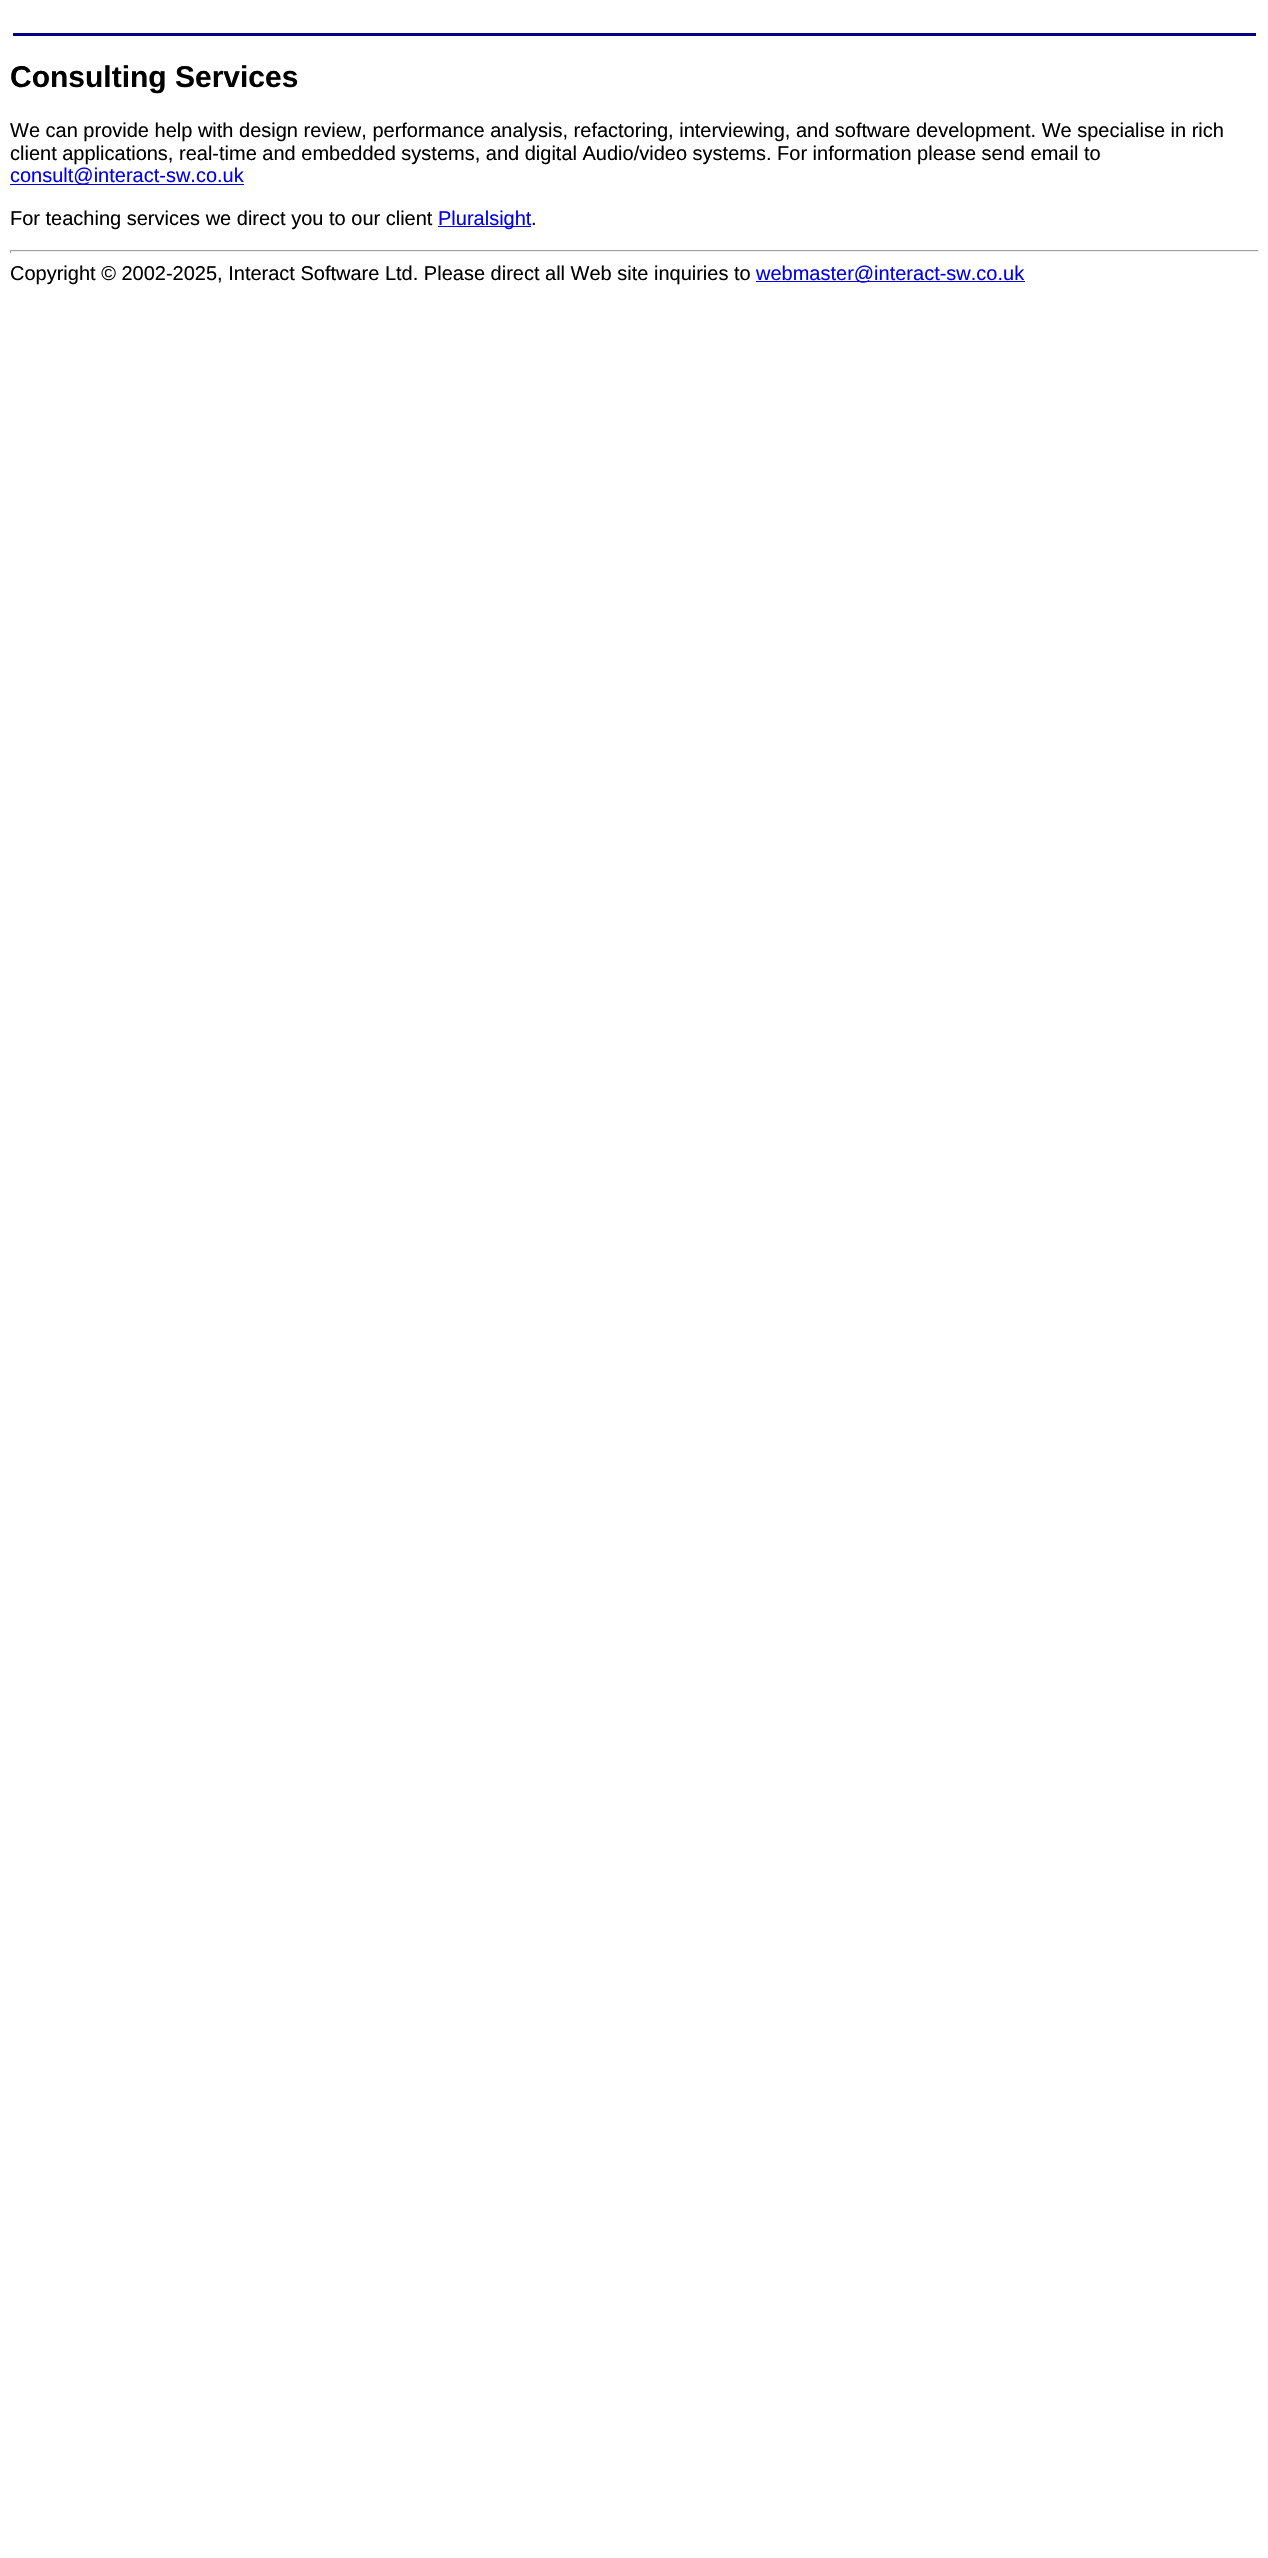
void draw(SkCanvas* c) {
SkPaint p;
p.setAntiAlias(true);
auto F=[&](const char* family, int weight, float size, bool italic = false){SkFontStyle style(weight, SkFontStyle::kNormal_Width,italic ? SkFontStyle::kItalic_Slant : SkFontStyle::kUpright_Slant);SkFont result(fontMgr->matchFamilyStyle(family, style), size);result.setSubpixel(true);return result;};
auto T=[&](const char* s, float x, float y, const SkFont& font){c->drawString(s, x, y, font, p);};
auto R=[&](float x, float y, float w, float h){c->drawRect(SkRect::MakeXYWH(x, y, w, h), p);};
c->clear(0xffffffff);
p.setColor(0xff000080);
R(13,33,1243,3);
auto f1 = F("Liberation Sans",700,30);
p.setColor(0xff000000);
T("Consulting Services",10,87,f1);
auto f2 = F("Liberation Sans",400,20);
T("We can provide help with design review, performance analysis, refactoring, interviewing, and software development. We specialise in rich",10,137,f2);
T("client applications, real-time and embedded systems, and digital Audio/video systems. For information please send email to",10,160,f2);
p.setColor(0xff0000ee);
R(10,184,234,1);
T("consult@interact-sw.co.uk",10,182,f2);
p.setColor(0xff000000);
T("For teaching services we direct you to our client",10,225,f2);
p.setColor(0xff0000ee);
R(438,226,93,1);
T("Pluralsight",438,225,f2);
p.setColor(0xff000000);
T(".",531,225,f2);
p.setColor(0xff9f9f9f);
R(10,250,1249,1);
p.setColor(0xffeeeeee);
R(1258,250,1,3);
R(10,251,1249,1);
p.setColor(0xff9f9f9f);
R(10,250,1,3);
p.setColor(0xff000000);
T("Copyright © 2002-2025, Interact Software Ltd. Please direct all Web site inquiries to",10,280,f2);
p.setColor(0xff0000ee);
R(756,281,269,1);
T("webmaster@interact-sw.co.uk",756,280,f2);
}
